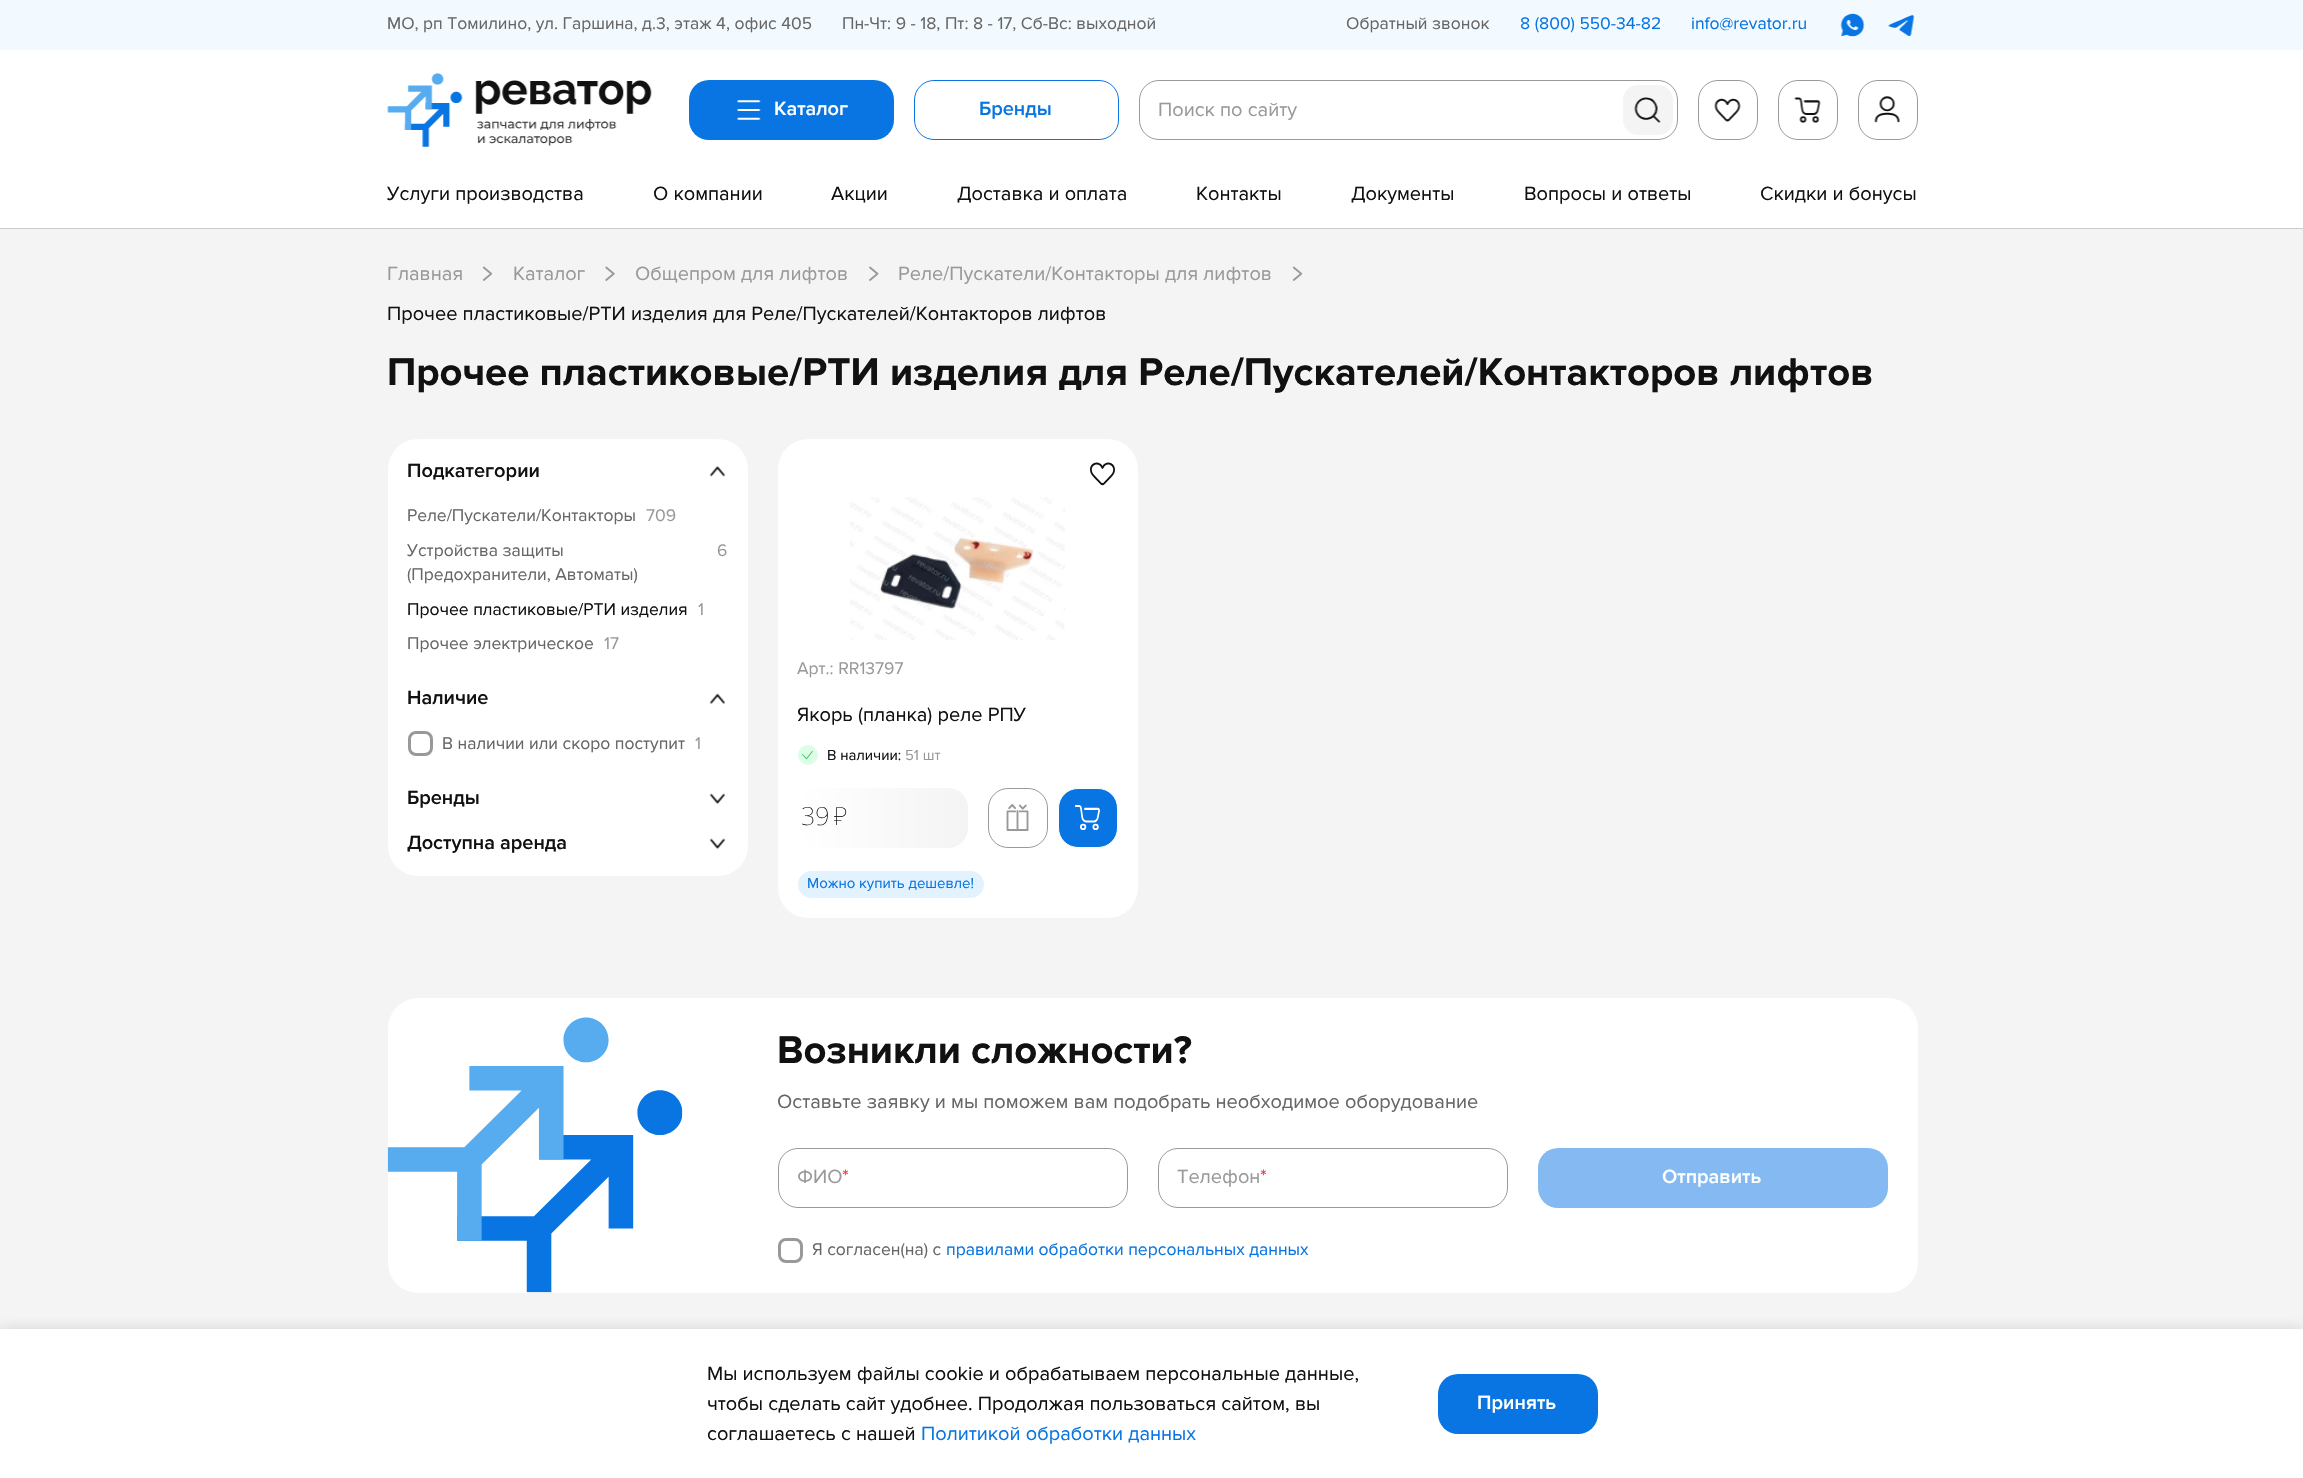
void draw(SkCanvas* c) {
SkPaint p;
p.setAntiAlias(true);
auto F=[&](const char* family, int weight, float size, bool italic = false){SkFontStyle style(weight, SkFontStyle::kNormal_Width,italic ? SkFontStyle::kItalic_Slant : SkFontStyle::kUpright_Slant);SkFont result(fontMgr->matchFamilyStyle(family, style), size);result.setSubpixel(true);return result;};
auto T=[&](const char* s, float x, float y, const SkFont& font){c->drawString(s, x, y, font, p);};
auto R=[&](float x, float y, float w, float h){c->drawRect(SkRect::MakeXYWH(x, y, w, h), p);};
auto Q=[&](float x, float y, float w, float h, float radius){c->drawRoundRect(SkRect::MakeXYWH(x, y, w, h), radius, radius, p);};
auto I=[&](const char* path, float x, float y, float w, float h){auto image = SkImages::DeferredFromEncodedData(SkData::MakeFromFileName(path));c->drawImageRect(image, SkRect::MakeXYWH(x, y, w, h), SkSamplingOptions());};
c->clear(0xfff4f4f4);
p.setColor(0xffffffff);
R(0,50,2303,178);
p.setColor(0xffcccccc);
R(0,228,2303,1);
p.setColor(0xfff3faff);
R(0,0,2303,50);
auto f1 = F("Proxima Nova",400,17.5);
p.setColor(0xff666666);
T("МО, рп Томилино, ул. Гаршина, д.3, этаж 4, офис 405",387,29,f1);
T("Пн-Чт: 9 - 18, Пт: 8 - 17, Сб-Вс: выходной",842,29,f1);
T("Обратный звонок",1346,29,f1);
p.setColor(0xff0875e2);
T("8 (800) 550-34-82",1520,29,f1);
T("info@revator.ru",1691,29,f1);
I("1.png",1840,13,25,24);
I("2.png",1888,15,27,21);
I("3.png",387,73,265,74);
Q(689,80,205,60,20);
I("4.png",737,100,24,20);
auto f2 = F("Proxima Nova",600,20);
p.setColor(0xffffffff);
T("Каталог",774,115,f2);
p.setStroke(true);
p.setStrokeWidth(1);
p.setColor(0xff0875e2);
c->drawRoundRect(SkRect::MakeXYWH(914.5,80.5,204,59),19.5,19.5,p);
p.setStroke(false);
T("Бренды",979,115,f2);
p.setStroke(true);
p.setColor(0xff999999);
c->drawRoundRect(SkRect::MakeXYWH(1139.5,80.5,538,59),19.5,19.5,p);
auto f3 = F("Proxima Nova",400,20);
p.setStroke(false);
T("Поиск по сайту",1158,116,f3);
p.setColor(0xfff4f4f4);
Q(1623,85,50,50,15);
I("5.png",1634,97,27,26);
p.setStroke(true);
p.setColor(0xff999999);
c->drawRoundRect(SkRect::MakeXYWH(1698.5,80.5,59,59),19.5,19.5,p);
I("6.png",1714,98,27,24);
c->drawRoundRect(SkRect::MakeXYWH(1778.5,80.5,59,59),19.5,19.5,p);
I("7.png",1794,97,27,26);
c->drawRoundRect(SkRect::MakeXYWH(1858.5,80.5,59,59),19.5,19.5,p);
I("8.png",1874,96,26,27);
p.setStroke(false);
p.setColor(0xff111111);
T("Услуги производства",387,200,f3);
T("О компании",653,200,f3);
T("Акции",831,200,f3);
T("Доставка и оплата",957,200,f3);
T("Контакты",1196,200,f3);
T("Документы",1351,200,f3);
T("Вопросы и ответы",1524,200,f3);
T("Скидки и бонусы",1760,200,f3);
p.setColor(0xff999999);
T("Главная",387,280,f3);
I("9.png",482,266,11,15);
T("Каталог",513,280,f3);
I("10.png",605,266,10,15);
T("Общепром для лифтов",635,280,f3);
I("11.png",869,266,10,15);
T("Реле/Пускатели/Контакторы для лифтов",898,280,f3);
I("9.png",1292,266,11,15);
p.setColor(0xff111111);
T("Прочее пластиковые/РТИ изделия для Реле/Пускателей/Контакторов лифтов",387,320,f3);
auto f4 = F("Proxima Nova",700,40);
T("Прочее пластиковые/РТИ изделия для Реле/Пускателей/Контакторов лифтов",387,385,f4);
p.setColor(0xffffffff);
Q(388,439,360,437,30);
p.setColor(0xff111111);
T("Подкатегории",407,477,f2);
I("12.png",709,466,17,11);
p.setColor(0xff666666);
T("Реле/Пускатели/Контакторы",407,521,f1);
p.setColor(0xff999999);
T("709",646,521,f1);
p.setColor(0xff666666);
T("Устройства защиты",407,556,f1);
T("(Предохранители, Автоматы)",407,580,f1);
p.setColor(0xff999999);
T("6",717,556,f1);
p.setColor(0xff111111);
T("Прочее пластиковые/РТИ изделия",407,615,f1);
p.setColor(0xff999999);
T("1",698,615,f1);
p.setColor(0xff666666);
T("Прочее электрическое",407,649,f1);
p.setColor(0xff999999);
T("17",604,649,f1);
p.setColor(0xff111111);
T("Наличие",407,704,f2);
I("13.png",709,693,17,11);
p.setStroke(true);
p.setStrokeWidth(3);
p.setColor(0xff999999);
c->drawRoundRect(SkRect::MakeXYWH(409.5,732.5,22,22),6.5,6.5,p);
p.setStroke(false);
p.setColor(0xff666666);
T("В наличии или скоро поступит",442,749,f1);
p.setColor(0xff999999);
T("1",695,749,f1);
p.setColor(0xff111111);
T("Бренды",407,804,f2);
I("14.png",709,793,17,11);
T("Доступна аренда",407,849,f2);
I("14.png",709,838,17,11);
p.setColor(0xffffffff);
Q(778,439,360,479,30);
I("15.png",1090,462,25,24);
I("16.png",850,497,215,143);
p.setColor(0xff999999);
T("Арт.: RR13797",797,674,f1);
p.setColor(0xff111111);
T("Якорь (планка) реле РПУ",797,721,f3);
p.setColor(0xffddfde6);
c->drawCircle(808,755,10,p);
I("17.png",802,750,11,10);
auto f5 = F("Proxima Nova",400,15);
p.setColor(0xff111111);
T("В наличии:",827,760,f5);
p.setColor(0xff999999);
T("51 шт",905,760,f5);
{
const SkColor colors[] = {0xffffffff,0xfff4f4f4};
const float stops[] = {0,1};
const SkPoint ends[] = {{798,818}, {968,818}};
p.setShader(SkGradientShader::MakeLinear(ends, colors, stops, 2, SkTileMode::kClamp));
p.setAlpha(255);
}
Q(798,788,170,60,20);
auto f6 = F("Noto Sans",100,25);
p.setShader(nullptr);
p.setColor(0xff111111);
T("39 ₽",801,825,f6);
p.setStroke(true);
p.setStrokeWidth(1);
p.setColor(0xff999999);
c->drawRoundRect(SkRect::MakeXYWH(988.5,788.5,59,59),19.5,19.5,p);
I("18.png",1006,804,23,27);
p.setStroke(false);
p.setColor(0xff0875e2);
c->drawRoundRect(SkRect::MakeXYWH(1058.5,788.5,59,59),19.5,19.5,p);
p.setStroke(true);
p.setColor(0xffffffff);
c->drawRoundRect(SkRect::MakeXYWH(1058.5,788.5,59,59),19.5,19.5,p);
I("19.png",1075,805,25,25);
p.setStroke(false);
p.setColor(0xffe3f2ff);
Q(798,871,186,27,13.5);
p.setColor(0xff0875e2);
T("Можно купить дешевле!",807,888,f5);
p.setColor(0xffffffff);
Q(388,998,1530,295,30);
I("20.png",387,1017,296,276);
p.setColor(0xff111111);
T("Возникли сложности?",777,1063,f4);
p.setColor(0xff666666);
T("Оставьте заявку и мы поможем вам подобрать необходимое оборудование",777,1108,f3);
p.setStroke(true);
p.setColor(0xff999999);
c->drawRoundRect(SkRect::MakeXYWH(778.5,1148.5,349,59),19.5,19.5,p);
p.setStroke(false);
T("ФИО",797,1183,f3);
p.setColor(0xffff3030);
T("*",842,1183,f3);
p.setStroke(true);
p.setColor(0xff999999);
c->drawRoundRect(SkRect::MakeXYWH(1158.5,1148.5,349,59),19.5,19.5,p);
p.setStroke(false);
T("Телефон",1177,1183,f3);
p.setColor(0xffff3030);
T("*",1260,1183,f3);
p.setColor(0xff84baf1);
Q(1538,1148,350,60,20);
p.setColor(0xffffffff);
T("Отправить",1662,1183,f2);
p.setStroke(true);
p.setStrokeWidth(3);
p.setColor(0xff999999);
c->drawRoundRect(SkRect::MakeXYWH(779.5,1239.5,22,22),6.5,6.5,p);
p.setStroke(false);
p.setColor(0xff666666);
T("Я согласен(на) с",812,1255,f1);
p.setColor(0xff0875e2);
T("правилами обработки персональных данных",946,1255,f1);
p.setColor(0x33121212);
p.setMaskFilter(SkMaskFilter::MakeBlur(kNormal_SkBlurStyle, 7.5));
c->drawRect(SkRect::MakeXYWH(0,1331,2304,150),p);
p.setMaskFilter(nullptr);
p.setColor(0xffffffff);
R(0,1329,2303,149);
p.setColor(0xff111111);
T("Мы используем файлы cookie и обрабатываем персональные данные,",707,1380,f3);
T("чтобы сделать сайт удобнее. Продолжая пользоваться сайтом, вы",707,1410,f3);
T("соглашаетесь с нашей",707,1440,f3);
p.setColor(0xff0875e2);
T("Политикой обработки данных",921,1440,f3);
Q(1438,1374,160,60,20);
p.setColor(0xffffffff);
T("Принять",1477,1409,f2);
}
